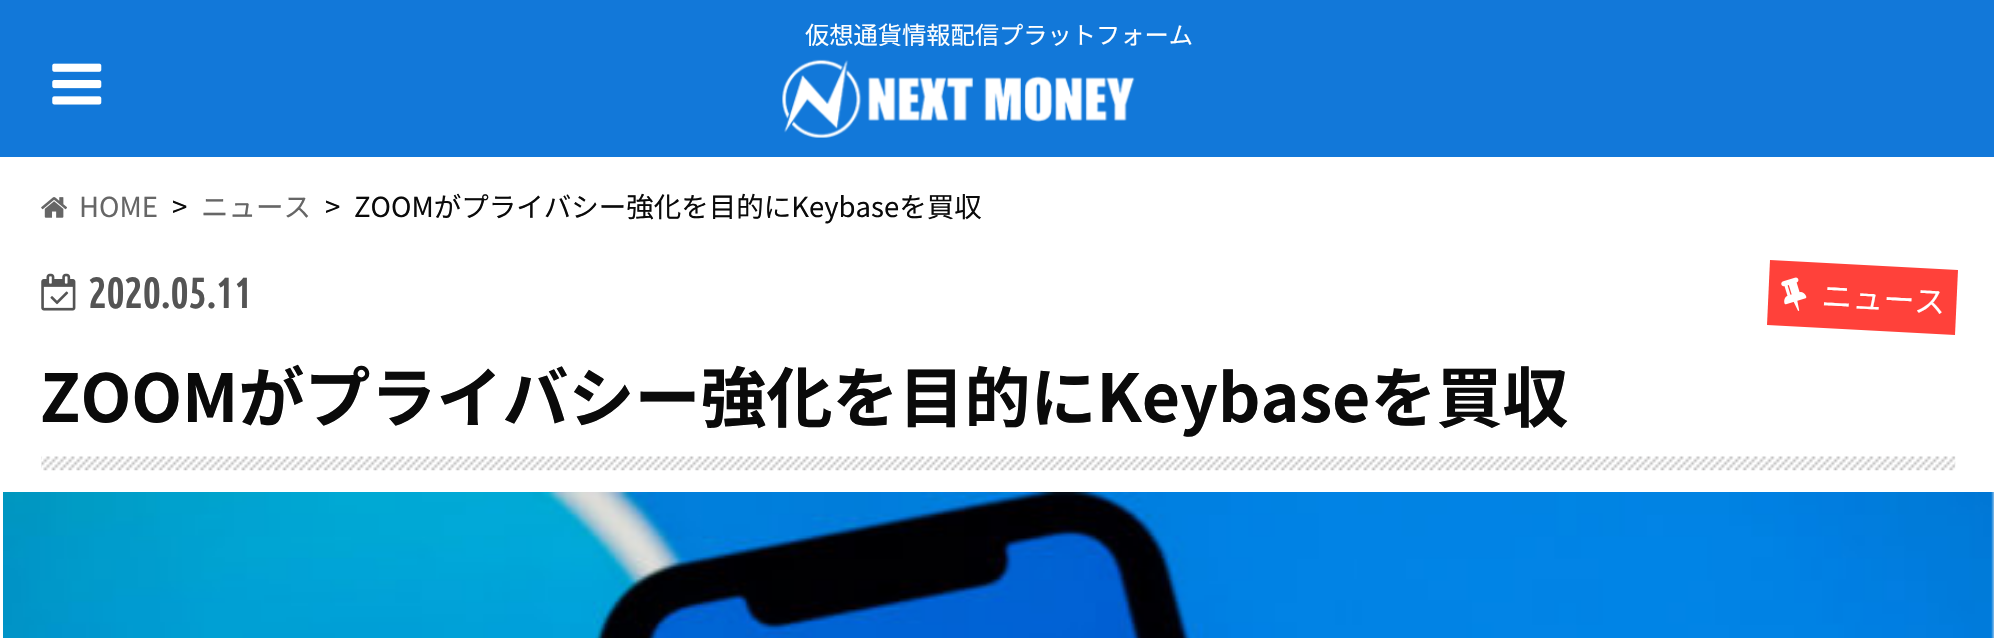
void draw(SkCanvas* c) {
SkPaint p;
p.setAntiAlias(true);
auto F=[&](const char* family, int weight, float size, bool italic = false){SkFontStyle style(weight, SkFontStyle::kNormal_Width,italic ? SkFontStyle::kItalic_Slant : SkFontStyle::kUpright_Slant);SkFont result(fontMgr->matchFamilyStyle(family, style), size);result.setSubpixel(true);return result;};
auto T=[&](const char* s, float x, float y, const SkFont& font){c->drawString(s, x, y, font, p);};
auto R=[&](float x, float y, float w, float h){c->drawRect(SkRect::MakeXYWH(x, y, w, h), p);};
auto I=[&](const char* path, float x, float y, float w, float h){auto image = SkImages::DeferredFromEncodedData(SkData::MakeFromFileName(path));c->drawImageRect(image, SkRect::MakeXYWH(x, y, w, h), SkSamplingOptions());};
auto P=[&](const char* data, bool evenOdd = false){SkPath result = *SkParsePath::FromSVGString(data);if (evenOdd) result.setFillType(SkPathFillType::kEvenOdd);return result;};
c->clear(0xffffffff);
p.setColor(0xff1278d9);
R(0,0,1994,157);
auto f1 = F("Noto Sans JP",400,24.25);
p.setColor(0xffffffff);
T("仮想通貨情報配信プラットフォーム",805,44,f1);
I("1.png",52,63,50,42);
I("2.png",782,59,353,79);
I("3.png",41,197,26,21);
auto f2 = F("Noto Sans JP",400,27.5);
p.setColor(0xff666666);
T("HOME",79,217,f2);
p.setColor(0xff0a0a0a);
T(">",172,217,f2);
p.setColor(0xff666666);
T("ニュース",201,217,f2);
p.setColor(0xff0a0a0a);
T(">",325,217,f2);
T("ZOOMがプライバシー強化を目的にKeybaseを買収",354,217,f2);
I("4.png",41,273,35,38);
auto f3 = F("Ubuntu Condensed",700,42);
p.setColor(0xff545454);
T("2020.05.11",88,308,f3);
p.setColor(0xffff413a);
c->drawPath(P("M1770 260l188 10l-3 65l-188-10z"),p);
I("5.png",1781,277,26,34);
auto f4 = F("Noto Sans JP",400,31);
p.setColor(0xffffffff);
c->save();
c->rotate(3,1821,307);
T("ニュース",1821,307,f4);
c->restore();
I("6.png",41,456,1915,15);
auto f5 = F("Noto Sans JP",700,66);
p.setColor(0xff0a0a0a);
T("ZOOMがプライバシー強化を目的にKeybaseを買収",40,422,f5);
I("7.png",3,492,1991,146);
}
